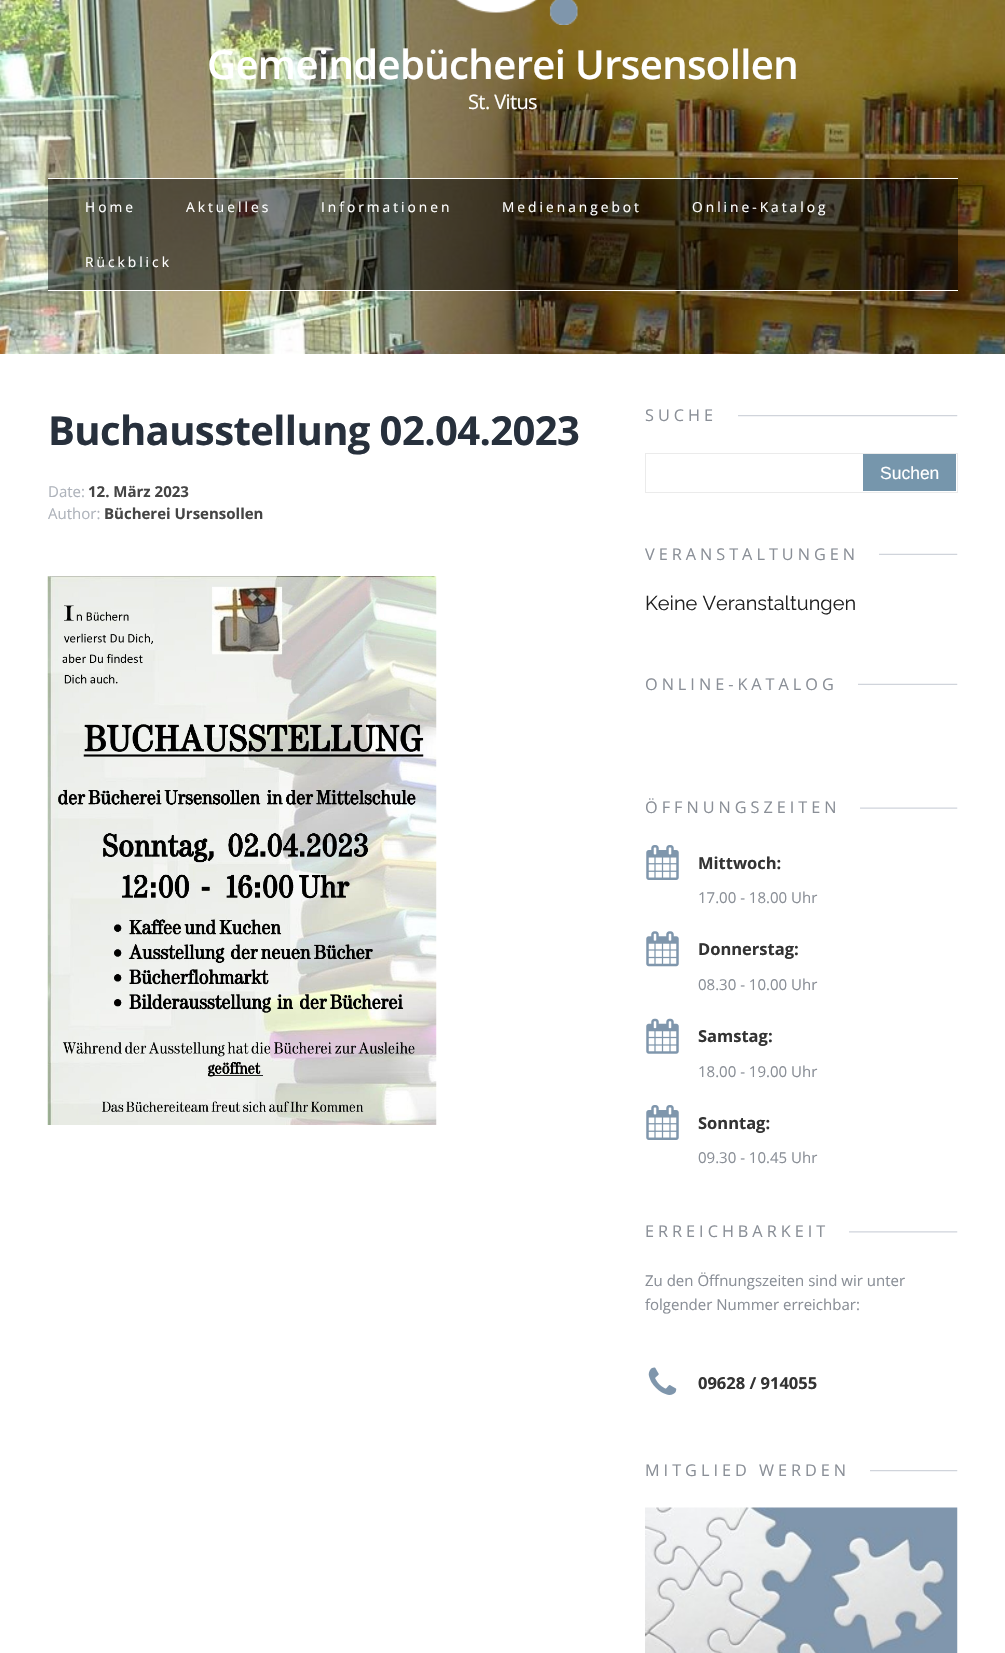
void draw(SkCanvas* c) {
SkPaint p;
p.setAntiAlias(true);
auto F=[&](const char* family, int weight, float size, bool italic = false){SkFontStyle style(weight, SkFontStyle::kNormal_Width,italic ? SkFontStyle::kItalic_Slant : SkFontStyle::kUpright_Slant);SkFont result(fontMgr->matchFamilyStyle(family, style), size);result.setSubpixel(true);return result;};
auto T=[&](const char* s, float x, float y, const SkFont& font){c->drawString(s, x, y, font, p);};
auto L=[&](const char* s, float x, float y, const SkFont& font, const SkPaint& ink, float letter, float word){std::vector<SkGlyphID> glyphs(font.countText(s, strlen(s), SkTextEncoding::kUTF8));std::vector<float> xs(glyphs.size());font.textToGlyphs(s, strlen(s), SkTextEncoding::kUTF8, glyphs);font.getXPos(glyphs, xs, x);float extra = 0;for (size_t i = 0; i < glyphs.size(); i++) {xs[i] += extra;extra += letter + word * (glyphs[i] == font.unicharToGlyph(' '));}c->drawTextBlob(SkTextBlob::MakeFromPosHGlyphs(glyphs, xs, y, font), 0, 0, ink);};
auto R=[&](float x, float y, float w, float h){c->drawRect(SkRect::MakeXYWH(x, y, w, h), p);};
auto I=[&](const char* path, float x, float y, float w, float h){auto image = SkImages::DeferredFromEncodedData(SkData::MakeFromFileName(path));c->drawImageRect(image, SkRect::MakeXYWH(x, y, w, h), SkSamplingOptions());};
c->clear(0xffffffff);
I("1.png",0,0,1005,354);
I("2.png",455,0,123,25);
auto f1 = F("Open Sans",600,40);
p.setColor(0xffffffff);
L("Gemeindebücherei Ursensollen",207,79,f1,p,-.6,0);
auto f2 = F("Open Sans",400,20);
L("St. Vitus",468,109,f2,p,-.6,0);
p.setColor(0x80000000);
R(48,179,910,111);
p.setColor(0xffffffff);
R(48,178,910,1);
R(48,290,910,1);
auto f3 = F("Open Sans",400,13.75);
L("Home",85,212,f3,p,3,0);
L("Aktuelles",186,212,f3,p,3,0);
L("Informationen",321,212,f3,p,3,0);
L("Medienangebot",502,212,f3,p,3,0);
L("Online-Katalog",692,212,f3,p,3,0);
L("Rückblick",85,267,f3,p,3,0);
auto f4 = F("Open Sans",700,40);
p.setColor(0xff27303c);
L("Buchausstellung 02.04.2023",48,445,f4,p,-.6,0);
auto f5 = F("Open Sans",400,15);
p.setColor(0xffaeb3bb);
T("Date:",48,497,f5);
auto f6 = F("Open Sans",700,15);
p.setColor(0xff454545);
T("12. März 2023",88,497,f6);
p.setColor(0xffaeb3bb);
T("Author:",48,519,f5);
p.setColor(0xff454545);
T("Bücherei Ursensollen",104,519,f6);
I("3.png",47,576,390,549);
I("4.png",738,415,220,2);
auto f7 = F("Open Sans",400,16.25);
p.setColor(0xff8a8f97);
L("SUCHE",645,421,f7,p,4,0);
p.setStroke(true);
p.setStrokeWidth(1);
p.setColor(0xffebebeb);
c->drawRect(SkRect::MakeXYWH(645.5,453.5,312,39),p);
p.setStroke(false);
p.setColor(0xff7696ac);
R(863,454,93,37);
auto f8 = F("Liberation Sans",400,17.5);
p.setColor(0xffffffff);
T("Suchen",880,479,f8);
I("5.png",879,553,79,2);
p.setColor(0xff8a8f97);
L("VERANSTALTUNGEN",645,560,f7,p,4,0);
auto f9 = F("Raleway",400,20);
p.setColor(0xff212121);
T("Keine Veranstaltungen",645,610,f9);
I("6.png",858,683,100,2);
p.setColor(0xff8a8f97);
L("ONLINE-KATALOG",645,690,f7,p,4,0);
I("7.png",860,807,98,2);
L("ÖFFNUNGSZEITEN",645,813,f7,p,4,0);
I("8.png",646,845,33,35);
auto f10 = F("Open Sans",700,16.5);
p.setColor(0xff333333);
T("Mittwoch:",698,869,f10);
p.setColor(0xff8a8f97);
T("17.00 - 18.00 Uhr",698,903,f5);
I("9.png",646,931,33,36);
p.setColor(0xff333333);
T("Donnerstag:",698,955,f10);
p.setColor(0xff8a8f97);
T("08.30 - 10.00 Uhr",698,990,f5);
I("10.png",646,1018,33,36);
p.setColor(0xff333333);
T("Samstag:",698,1042,f10);
p.setColor(0xff8a8f97);
T("18.00 - 19.00 Uhr",698,1077,f5);
I("8.png",646,1105,33,35);
p.setColor(0xff333333);
T("Sonntag:",698,1129,f10);
p.setColor(0xff8a8f97);
T("09.30 - 10.45 Uhr",698,1163,f5);
I("11.png",849,1231,109,2);
L("ERREICHBARKEIT",645,1237,f7,p,4,0);
T("Zu den Öffnungszeiten sind wir unter",645,1286,f5);
T("folgender Nummer erreichbar:",645,1310,f5);
I("12.png",648,1367,29,28);
p.setColor(0xff333333);
T("09628 / 914055",698,1389,f10);
I("13.png",870,1470,88,2);
p.setColor(0xff8a8f97);
L("MITGLIED WERDEN",645,1476,f7,p,4,0);
I("14.png",645,1507,313,146);
}
